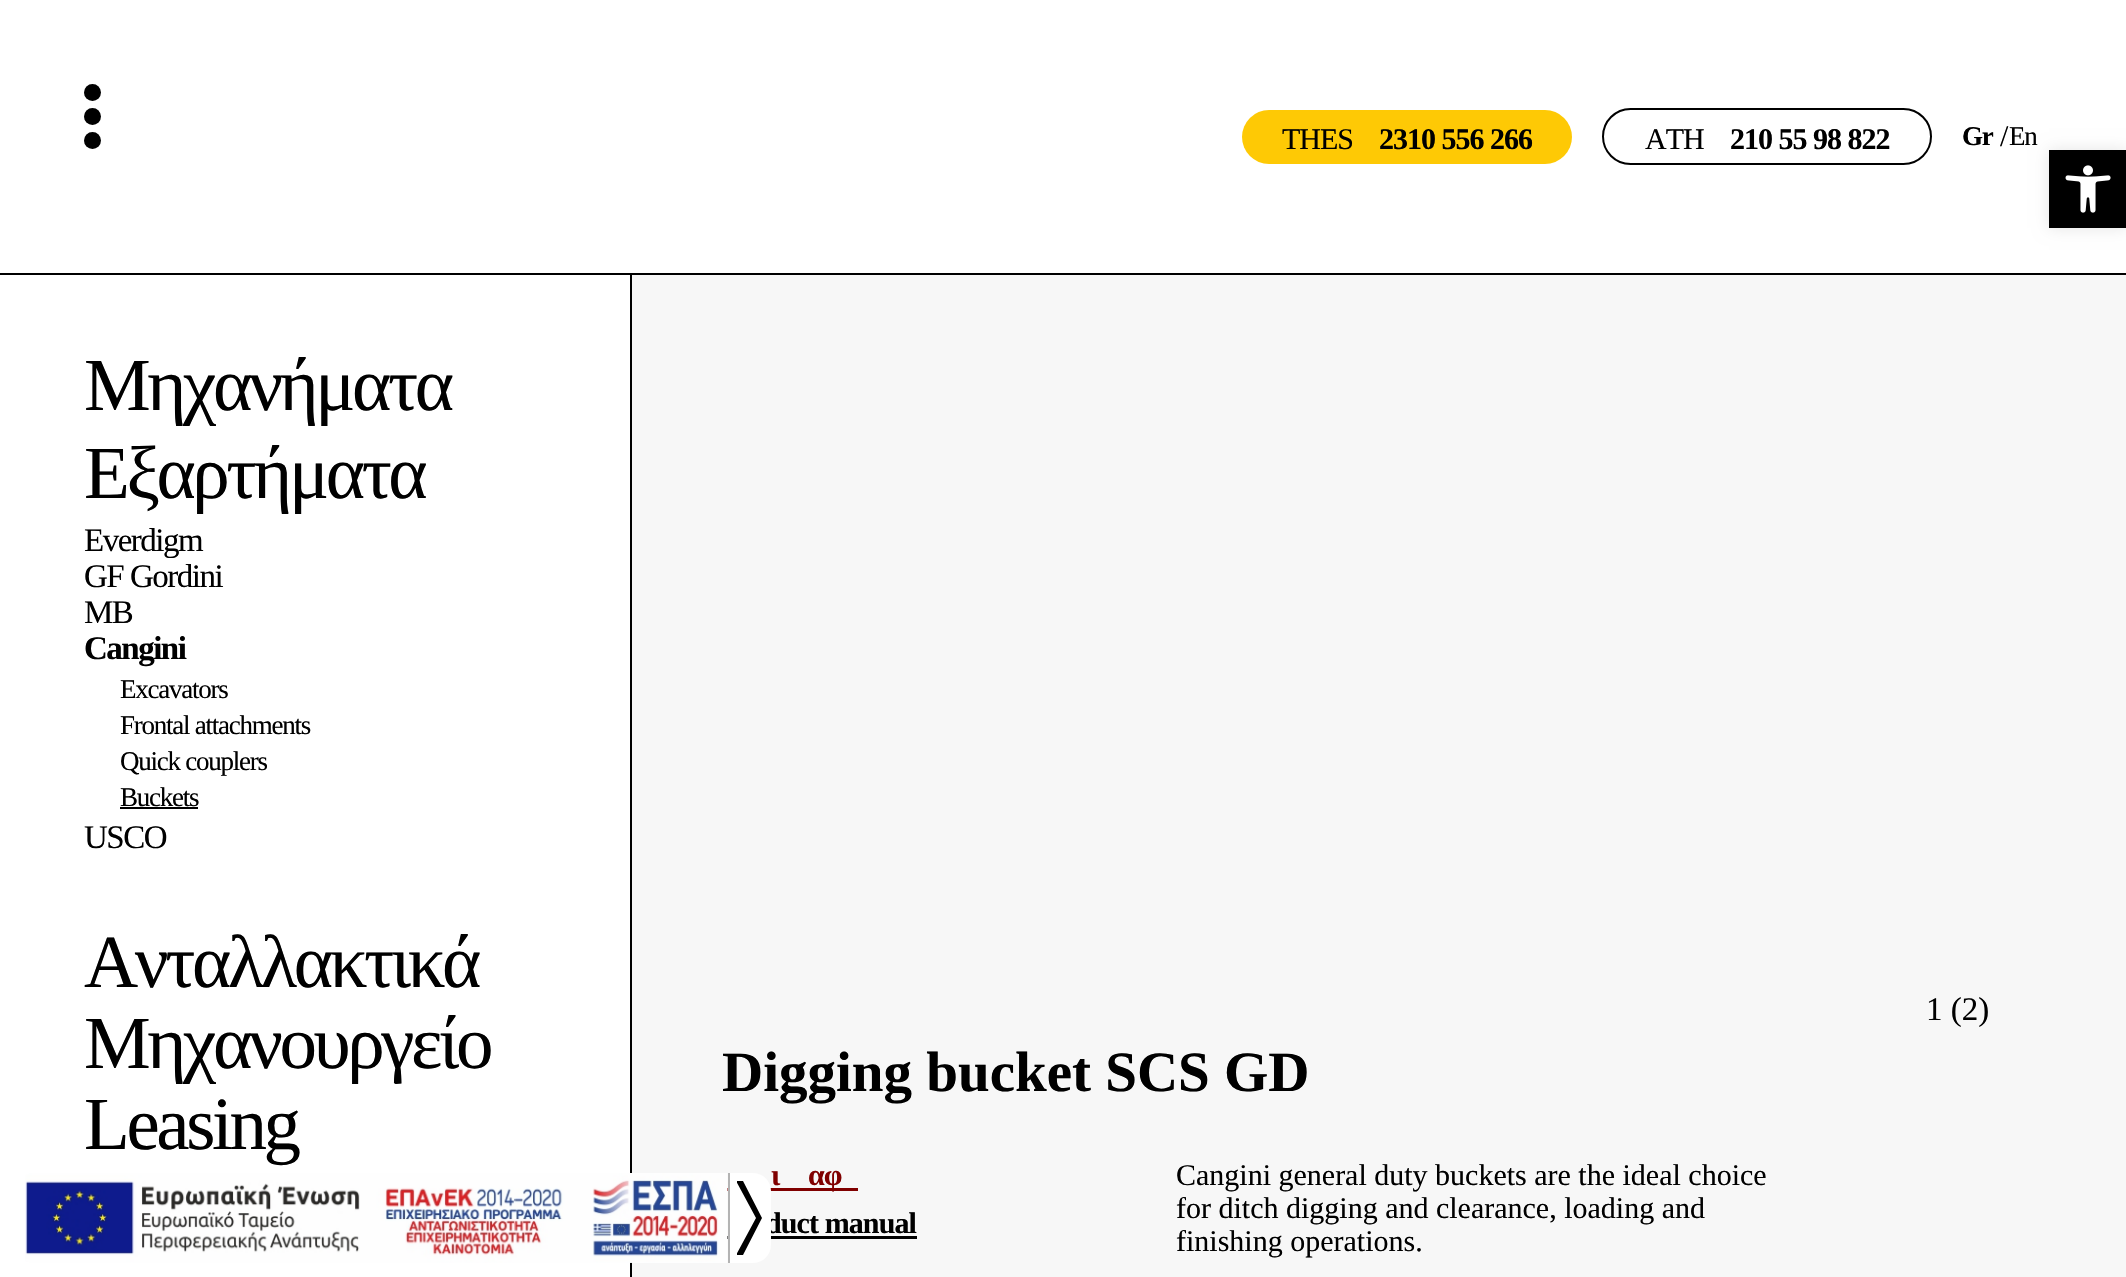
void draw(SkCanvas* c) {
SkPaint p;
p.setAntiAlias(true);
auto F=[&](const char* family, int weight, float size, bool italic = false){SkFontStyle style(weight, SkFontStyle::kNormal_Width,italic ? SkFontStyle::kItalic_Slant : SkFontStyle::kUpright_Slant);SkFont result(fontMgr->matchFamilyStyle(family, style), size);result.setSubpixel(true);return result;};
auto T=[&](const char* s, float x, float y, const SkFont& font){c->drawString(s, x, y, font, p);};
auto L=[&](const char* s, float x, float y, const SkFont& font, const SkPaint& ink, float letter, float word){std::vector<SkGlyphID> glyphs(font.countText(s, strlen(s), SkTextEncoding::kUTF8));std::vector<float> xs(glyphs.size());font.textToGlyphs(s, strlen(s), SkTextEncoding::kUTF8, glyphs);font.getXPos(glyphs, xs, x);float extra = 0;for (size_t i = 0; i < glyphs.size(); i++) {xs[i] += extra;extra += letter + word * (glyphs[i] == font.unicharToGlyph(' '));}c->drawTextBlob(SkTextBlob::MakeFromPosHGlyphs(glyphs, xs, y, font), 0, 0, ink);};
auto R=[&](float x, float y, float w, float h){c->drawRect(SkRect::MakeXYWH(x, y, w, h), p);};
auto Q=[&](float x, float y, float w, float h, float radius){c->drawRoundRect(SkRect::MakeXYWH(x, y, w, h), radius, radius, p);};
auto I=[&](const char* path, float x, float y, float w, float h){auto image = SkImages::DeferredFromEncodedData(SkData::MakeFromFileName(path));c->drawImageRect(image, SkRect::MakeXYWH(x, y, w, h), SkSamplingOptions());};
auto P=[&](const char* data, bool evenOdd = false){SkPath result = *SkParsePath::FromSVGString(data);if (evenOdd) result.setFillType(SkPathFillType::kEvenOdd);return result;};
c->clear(0xffffffff);
p.setColor(0xff000000);
R(0,273,2126,2);
c->drawCircle(92.5,92.5,8.5,p);
c->drawCircle(92.5,116.5,8.5,p);
c->drawCircle(92.5,140.5,8.5,p);
auto f1 = F("Liberation Serif",400,75);
L("Μηχανήματα",84,410,f1,p,-3.4,0);
L("Εξαρτήματα",84,498,f1,p,-3.4,0);
auto f2 = F("Liberation Serif",400,33);
L("Everdigm",84,551,f2,p,-1.5,0);
L("GF Gordini",84,587,f2,p,-1.5,0);
L("MB",84,623,f2,p,-1.5,0);
auto f3 = F("Liberation Serif",700,33);
L("Cangini",84,659,f3,p,-1.5,0);
auto f4 = F("Liberation Serif",400,27);
L("Excavators",120,698,f4,p,-1.25,0);
L("Frontal attachments",120,734,f4,p,-1.25,0);
L("Quick couplers",120,770,f4,p,-1.25,0);
L("Buckets",120,806,f4,p,-1.25,0);
R(120,807,78,2);
L("USCO",84,848,f2,p,-1.5,0);
L("Ανταλλακτικά",84,987,f1,p,-3.4,0);
L("Μηχανουργείο",84,1068,f1,p,-3.4,0);
L("Leasing",84,1149,f1,p,-3.4,0);
p.setColor(0xfffec905);
Q(1242,110,330,54,27);
auto f5 = F("Liberation Serif",400,30);
p.setColor(0xff000000);
L("THES",1282,149,f5,p,-1,0);
auto f6 = F("Liberation Serif",700,30);
L("2310 556 266",1379,149,f6,p,-1,0);
p.setStroke(true);
p.setStrokeWidth(2);
c->drawRoundRect(SkRect::MakeXYWH(1603,109,328,55),27.5,27.5,p);
p.setStroke(false);
L("ATH",1645,149,f5,p,-1,0);
L("210 55 98 822",1730,149,f6,p,-1,0);
auto f7 = F("Liberation Serif",700,27);
L("Gr",1962,145,f7,p,-1.25,0);
T("/",2000,146,f5);
L("En",2009,145,f4,p,-1.25,0);
R(630,275,2,1002);
p.setColor(0xfff7f7f7);
R(632,275,1494,1002);
p.setColor(0xff000000);
T("1 (2)",1926,1020,f2);
auto f8 = F("Liberation Serif",700,57);
T("Digging bucket SCS GD",722,1091,f8);
p.setColor(0xff800000);
L("ι",771,1185,f6,p,-.9,0);
R(722,1188,136,3);
L("αφ",808,1185,f6,p,-.9,0);
p.setColor(0xff000000);
L("duct manual",765,1233,f6,p,-.9,0);
R(722,1236,195,3);
T("Cangini general duty buckets are the ideal choice",1176,1185,f5);
T("for ditch digging and clearance, loading and",1176,1218,f5);
T("finishing operations.",1176,1251,f5);
I("1.png",25,1173,703,90);
p.setColor(0xffffffff);
c->drawPath(P("M728 1173h25c10 0 18 8 18 18v54c0 10-8 18-18 18h-25z"),p);
p.setColor(0xffb3b3b3);
R(728,1173,2,90);
c->save();
c->clipRect(SkRect::MakeXYWH(737,1181,27,75));
p.setColor(0xff000000);
c->drawPath(P("M736 1181l20 37l-20 37h7l19-37l-19-37z"),p);
c->restore();
p.setColor(0x1a000000);
p.setMaskFilter(SkMaskFilter::MakeBlur(kNormal_SkBlurStyle, 7.5));
c->drawRect(SkRect::MakeXYWH(2049,150,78,78),p);
p.setMaskFilter(nullptr);
p.setColor(0xff000000);
R(2049,150,77,78);
I("2.png",2065,165,46,48);
}
